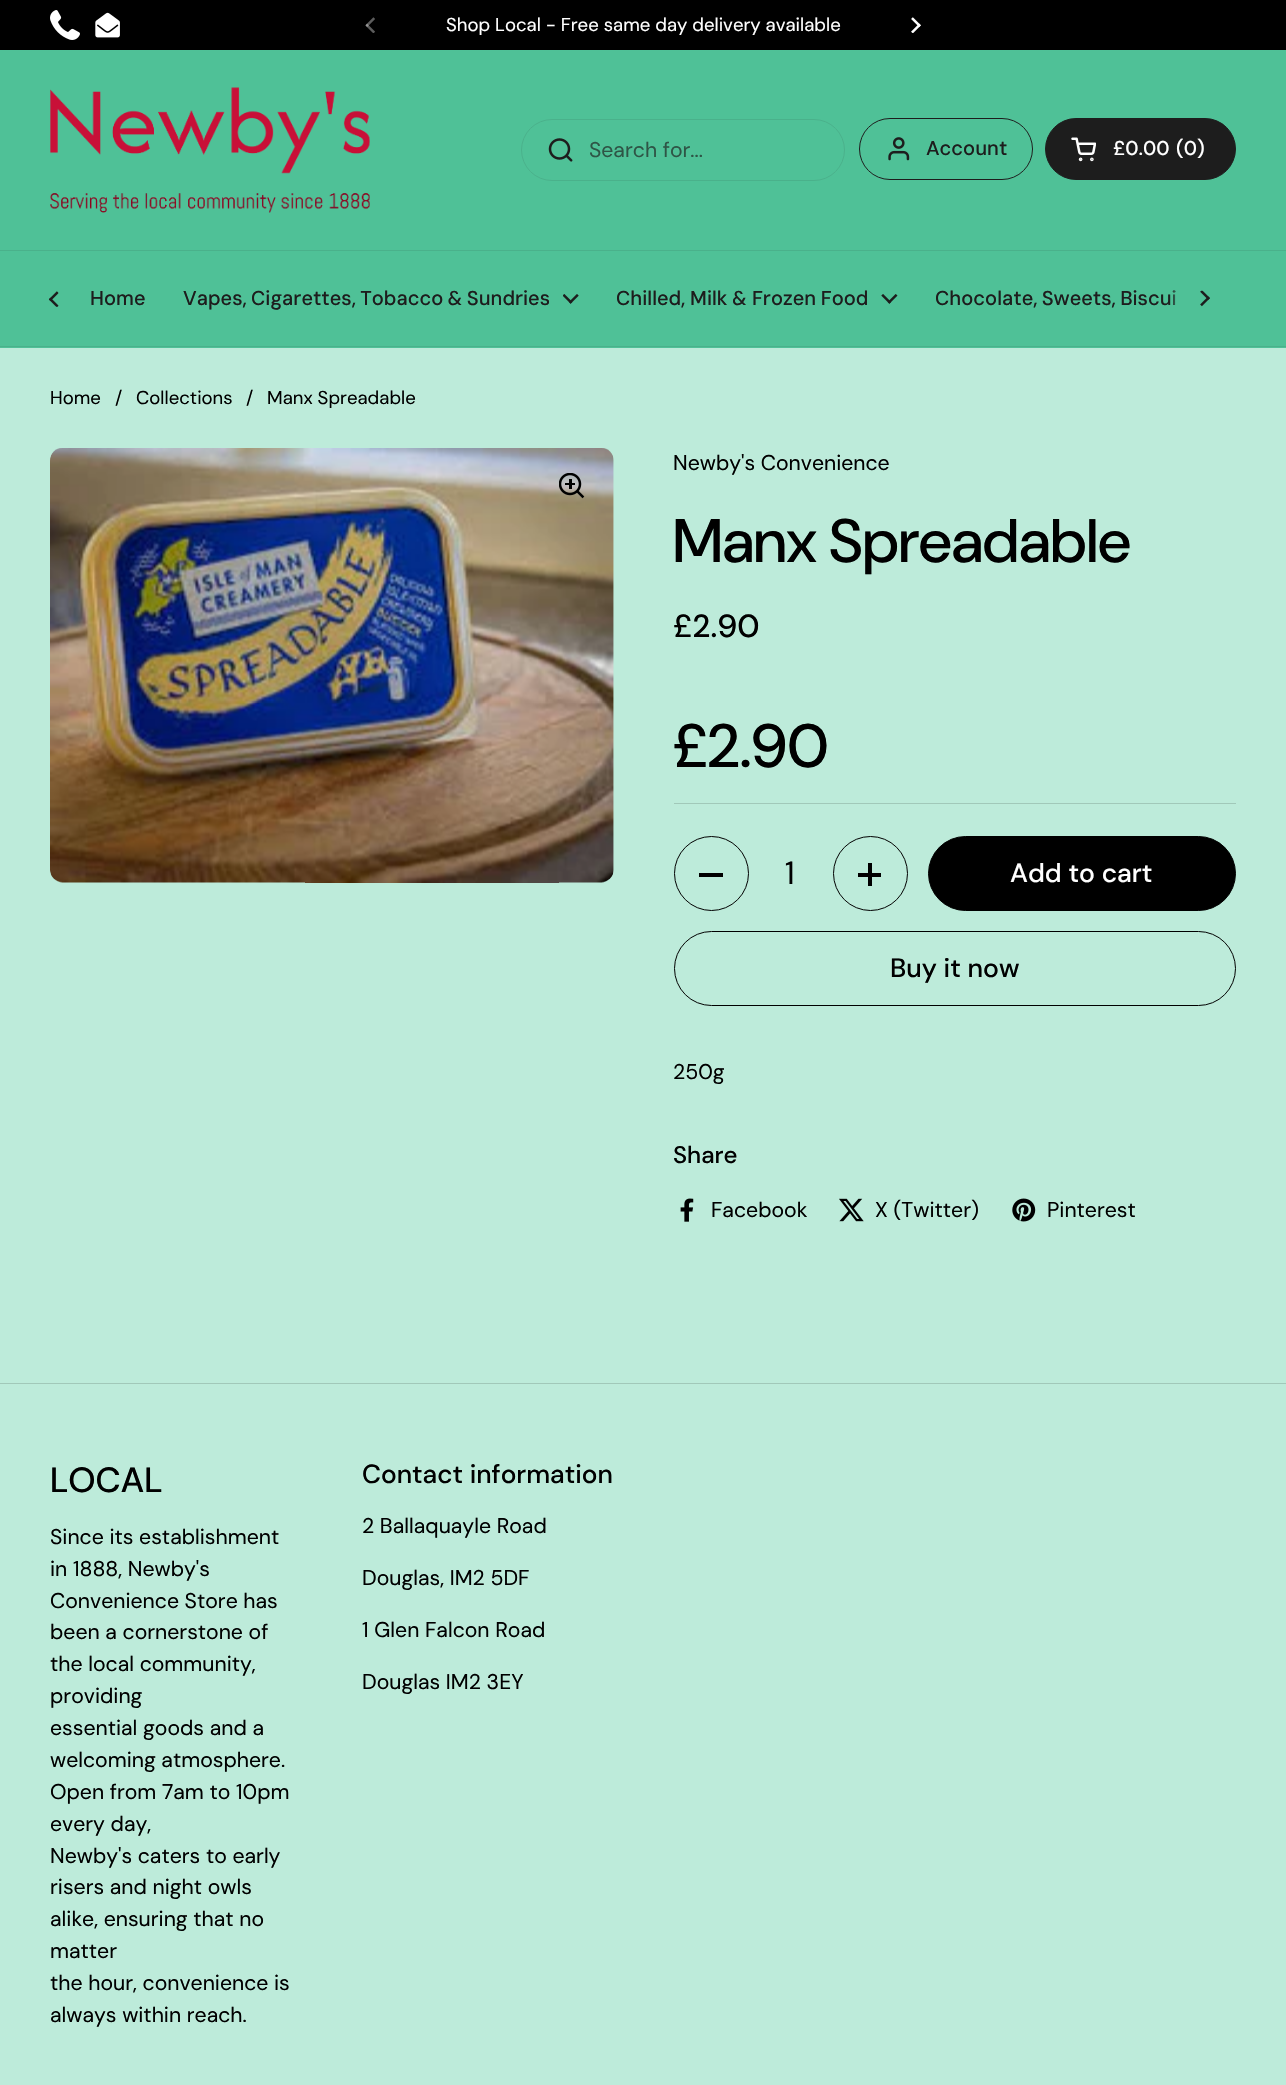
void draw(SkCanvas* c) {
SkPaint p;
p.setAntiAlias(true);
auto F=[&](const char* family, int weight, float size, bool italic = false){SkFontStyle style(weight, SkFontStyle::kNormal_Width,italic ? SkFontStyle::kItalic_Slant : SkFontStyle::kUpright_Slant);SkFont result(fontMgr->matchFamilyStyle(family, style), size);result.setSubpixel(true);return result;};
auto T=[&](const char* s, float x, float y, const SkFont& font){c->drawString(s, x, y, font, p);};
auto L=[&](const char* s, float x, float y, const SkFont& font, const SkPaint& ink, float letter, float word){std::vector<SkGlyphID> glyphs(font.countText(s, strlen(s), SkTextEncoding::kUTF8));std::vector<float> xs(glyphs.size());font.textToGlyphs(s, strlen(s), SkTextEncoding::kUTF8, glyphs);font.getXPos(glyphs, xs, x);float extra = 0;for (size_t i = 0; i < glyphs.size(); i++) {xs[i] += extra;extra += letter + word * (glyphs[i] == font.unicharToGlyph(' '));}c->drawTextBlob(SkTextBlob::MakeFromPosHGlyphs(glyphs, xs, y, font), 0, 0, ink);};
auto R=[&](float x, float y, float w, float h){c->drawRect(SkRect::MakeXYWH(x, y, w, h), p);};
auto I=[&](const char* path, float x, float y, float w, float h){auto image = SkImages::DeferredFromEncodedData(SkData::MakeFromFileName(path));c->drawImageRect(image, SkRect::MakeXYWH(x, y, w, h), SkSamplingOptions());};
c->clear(0xffbdebda);
p.setColor(0xff000000);
R(0,0,1286,50);
I("1.png",50,10,30,30);
I("2.png",95,12,25,26);
I("3.png",365,17,10,16);
auto f1 = F("DM Sans",400,18.6);
p.setColor(0xffffffff);
T("Shop Local - Free same day delivery available",446,31,f1);
I("4.png",911,17,10,16);
p.setColor(0xff4fc197);
R(0,50,1286,298);
p.setColor(0xff4ab18b);
R(0,250,1286,1);
I("5.png",50,87,320,126);
p.setStroke(true);
p.setStrokeWidth(1);
c->drawRoundRect(SkRect::MakeXYWH(521.5,119.5,323,61),30.5,30.5,p);
I("6.png",548,138,25,24);
auto f2 = F("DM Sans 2",400,21.25);
p.setStroke(false);
p.setColor(0xff2e5546);
T("Search for...",589,157,f2);
p.setStroke(true);
p.setColor(0xff1d1d1d);
c->drawRoundRect(SkRect::MakeXYWH(859.5,118.5,173,61),30.5,30.5,p);
I("7.png",888,137,22,24);
auto f3 = F("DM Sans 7",500,20);
p.setStroke(false);
T("Account",926,155,f3);
c->drawRoundRect(SkRect::MakeXYWH(1045.5,118.5,190,61),30.5,30.5,p);
p.setStroke(true);
c->drawRoundRect(SkRect::MakeXYWH(1045.5,118.5,190,61),30.5,30.5,p);
I("8.png",1071,137,25,25);
p.setStroke(false);
p.setColor(0xffffffff);
T("£0.00",1113,155,f3);
T("(0",1176,155,f3);
T(")",1197,155,f3);
p.setColor(0xff4ab18b);
R(0,346,1286,1);
I("9.png",48,291,11,16);
p.setColor(0xff1d1d1d);
T("Home",90,305,f3);
L("Vapes, Cigarettes, Tobacco & Sundries",183,305,f3,p,0,-1);
I("10.png",563,294,16,10);
L("Chilled, Milk & Frozen Food",616,305,f3,p,0,-.5);
I("11.png",881,294,17,10);
L("Chocolate, Sweets, Biscui",935,305,f3,p,0,-1);
{
const SkColor colors[] = {0xff4fc197,0x004fc197};
const float stops[] = {.5,1};
const SkPoint ends[] = {{1200,299}, {1169,299}};
p.setShader(SkGradientShader::MakeLinear(ends, colors, stops, 2, SkTileMode::kClamp));
p.setAlpha(255);
}
R(1169,290,6,15);
I("12.png",1200,290,10,17);
p.setShader(nullptr);
p.setColor(0xff000000);
T("Home",50,404,f1);
T("/",115,404,f1);
T("Collections",136,404,f1);
T("/",246,404,f1);
T("Manx Spreadable",267,404,f1);
I("13.png",50,448,564,435);
I("14.png",559,473,26,26);
T("Newby's Convenience",673,470,f2);
auto f4 = F("DM Sans",500,61.25);
T("Manx Spreadable",673,562,f4);
auto f5 = F("DM Sans 2",500,32);
T("£2.90",673,637,f5);
T("£2.90",673,767,f4);
p.setColor(0xffa1c8b9);
R(674,803,562,1);
p.setStroke(true);
p.setColor(0xff000000);
c->drawCircle(711.5,873.5,37,p);
p.setStroke(false);
R(699,873,24,4);
auto f6 = F("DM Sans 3",400,32);
T("1",785,884,f6);
p.setStroke(true);
c->drawCircle(870.5,873.5,37,p);
p.setStroke(false);
R(868,863,4,23);
R(858,873,23,4);
c->drawRoundRect(SkRect::MakeXYWH(928.5,836.5,307,74),37,37,p);
p.setStroke(true);
c->drawRoundRect(SkRect::MakeXYWH(928.5,836.5,307,74),37,37,p);
auto f7 = F("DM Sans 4",500,26.5);
p.setStroke(false);
p.setColor(0xffffffff);
T("Add to cart",1010,882,f7);
p.setStroke(true);
p.setColor(0xff000000);
c->drawRoundRect(SkRect::MakeXYWH(674.5,931.5,561,74),37,37,p);
p.setStroke(false);
T("Buy it now",890,977,f7);
T("250g",673,1079,f2);
auto f8 = F("DM Sans 3",500,24);
T("Share",673,1163,f8);
I("15.png",680,1198,14,24);
T("Facebook",711,1217,f2);
I("16.png",839,1198,25,24);
T("X (Twitter)",875,1217,f2);
I("17.png",1012,1198,24,24);
T("Pinterest",1047,1217,f2);
p.setColor(0xffa1c8b9);
R(0,1383,1286,1);
auto f9 = F("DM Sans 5",500,35);
p.setColor(0xff000000);
T("LOCAL",50,1492,f9);
T("Since its establishment",50,1544,f2);
T("in 1888, Newby's",50,1576,f2);
T("Convenience Store has",50,1608,f2);
T("been a cornerstone of",50,1639,f2);
T("the local community,",50,1671,f2);
T("providing",50,1703,f2);
T("essential goods and a",50,1735,f2);
T("welcoming atmosphere.",50,1767,f2);
T("Open from 7am to 10pm",50,1799,f2);
T("every day,",50,1831,f2);
T("Newby's caters to early",50,1863,f2);
T("risers and night owls",50,1894,f2);
T("alike, ensuring that no",50,1926,f2);
T("matter",50,1958,f2);
T("the hour, convenience is",50,1990,f2);
T("always within reach.",50,2022,f2);
auto f10 = F("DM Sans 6",500,26.25);
T("Contact information",362,1483,f10);
T("2 Ballaquayle Road",362,1533,f2);
T("Douglas, IM2 5DF",362,1585,f2);
T("1 Glen Falcon Road",362,1637,f2);
T("Douglas IM2 3EY",362,1689,f2);
}
